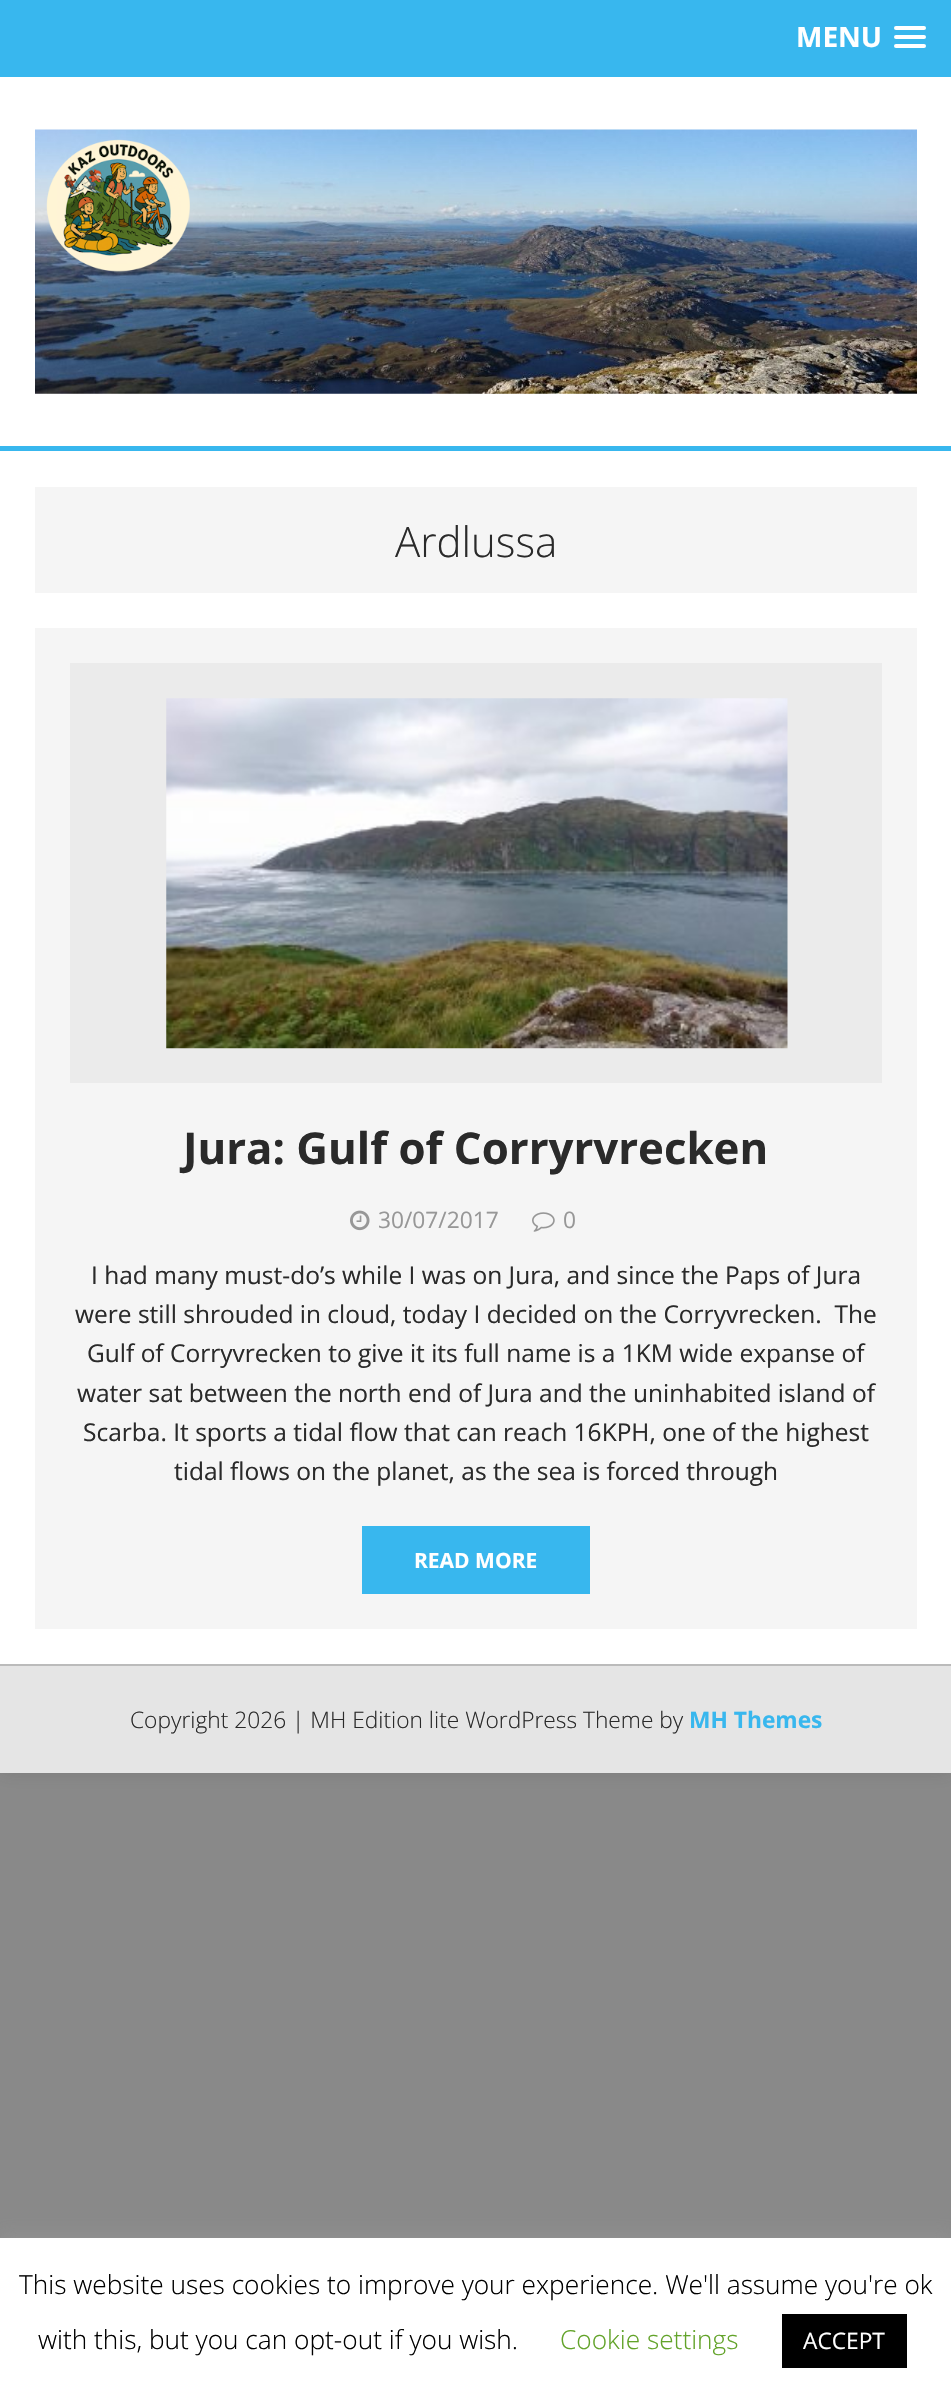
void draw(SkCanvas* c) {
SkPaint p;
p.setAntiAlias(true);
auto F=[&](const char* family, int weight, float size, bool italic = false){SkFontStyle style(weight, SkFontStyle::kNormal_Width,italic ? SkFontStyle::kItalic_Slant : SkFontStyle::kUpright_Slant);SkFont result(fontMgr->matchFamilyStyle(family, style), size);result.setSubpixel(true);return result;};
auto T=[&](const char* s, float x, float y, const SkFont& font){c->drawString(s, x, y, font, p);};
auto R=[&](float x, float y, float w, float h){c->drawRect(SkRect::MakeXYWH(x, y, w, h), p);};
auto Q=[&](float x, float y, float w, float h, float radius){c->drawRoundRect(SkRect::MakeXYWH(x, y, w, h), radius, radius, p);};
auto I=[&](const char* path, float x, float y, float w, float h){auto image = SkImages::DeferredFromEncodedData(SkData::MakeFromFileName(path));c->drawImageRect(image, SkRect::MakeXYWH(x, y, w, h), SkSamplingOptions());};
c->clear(0xff898989);
p.setColor(0x2b323232);
p.setMaskFilter(SkMaskFilter::MakeBlur(kNormal_SkBlurStyle, 9));
c->drawRect(SkRect::MakeXYWH(0,0,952,1773),p);
p.setMaskFilter(nullptr);
p.setColor(0xff38b7ee);
R(0,0,951,77);
auto f1 = F("Open Sans",700,28);
p.setColor(0xffffffff);
T("MENU",796,47,f1);
Q(894,26,32,4,2);
Q(894,35,32,4,2);
Q(894,44,32,4,2);
R(0,77,951,1587);
p.setColor(0xff38b7ee);
R(0,446,951,5);
I("1.png",35,129,882,265);
p.setColor(0xfff5f5f5);
R(35,487,882,106);
auto f2 = F("Open Sans",300,42);
p.setColor(0xff2a2a2a);
T("Ardlussa",395,557,f2);
p.setColor(0xfff5f5f5);
R(35,628,882,1001);
p.setColor(0xffebebeb);
R(70,663,812,420);
I("2.png",166,698,622,351);
auto f3 = F("Open Sans",700,43.75);
p.setColor(0xff2a2a2a);
T("Jura: Gulf of Corryrvrecken",183,1164,f3);
I("3.png",350,1210,20,21);
auto f4 = F("Open Sans",400,22.75);
p.setColor(0xff979797);
T("30/07/2017",378,1228,f4);
I("4.png",532,1212,23,20);
T("0",563,1228,f4);
auto f5 = F("Open Sans",400,24.5);
p.setColor(0xff2a2a2a);
T("I had many must-do’s while I was on Jura, and since the Paps of Jura",91,1284,f5);
T("were still shrouded in cloud, today I decided on the Corryvrecken.  The",75,1323,f5);
T("Gulf of Corryvrecken to give it its full name is a 1KM wide expanse of",87,1362,f5);
T("water sat between the north end of Jura and the uninhabited island of",77,1402,f5);
T("Scarba. It sports a tidal flow that can reach 16KPH, one of the highest",83,1441,f5);
T("tidal flows on the planet, as the sea is forced through",174,1480,f5);
p.setColor(0xff38b7ee);
R(362,1526,228,68);
auto f6 = F("Open Sans",700,21);
p.setColor(0xffffffff);
T("READ MORE",414,1568,f6);
p.setColor(0xffe5e5e5);
R(0,1666,951,107);
p.setColor(0xffbbbbbb);
R(0,1664,951,2);
auto f7 = F("Open Sans",300,22.75);
p.setColor(0xff2a2a2a);
T("Copyright 2026 | MH Edition lite WordPress Theme by",130,1728,f7);
auto f8 = F("Open Sans",700,22.75);
p.setColor(0xff38b7ee);
T("MH Themes",689,1728,f8);
p.setColor(0x4dacabab);
p.setMaskFilter(SkMaskFilter::MakeBlur(kNormal_SkBlurStyle, 9));
c->drawRect(SkRect::MakeXYWH(0,2237,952,159),p);
p.setMaskFilter(nullptr);
p.setColor(0xffffffff);
R(0,2238,951,158);
auto f9 = F("Open Sans",300,26.25);
p.setColor(0xff000000);
T("This website uses cookies to improve your experience. We'll assume you're ok",19,2294,f9);
T("with this, but you can opt-out if you wish.",38,2349,f9);
p.setColor(0xff62a329);
T("Cookie settings",560,2349,f9);
p.setColor(0xff000000);
R(782,2314,125,54);
p.setColor(0xffffffff);
T("ACCEPT",803,2349,f4);
}
